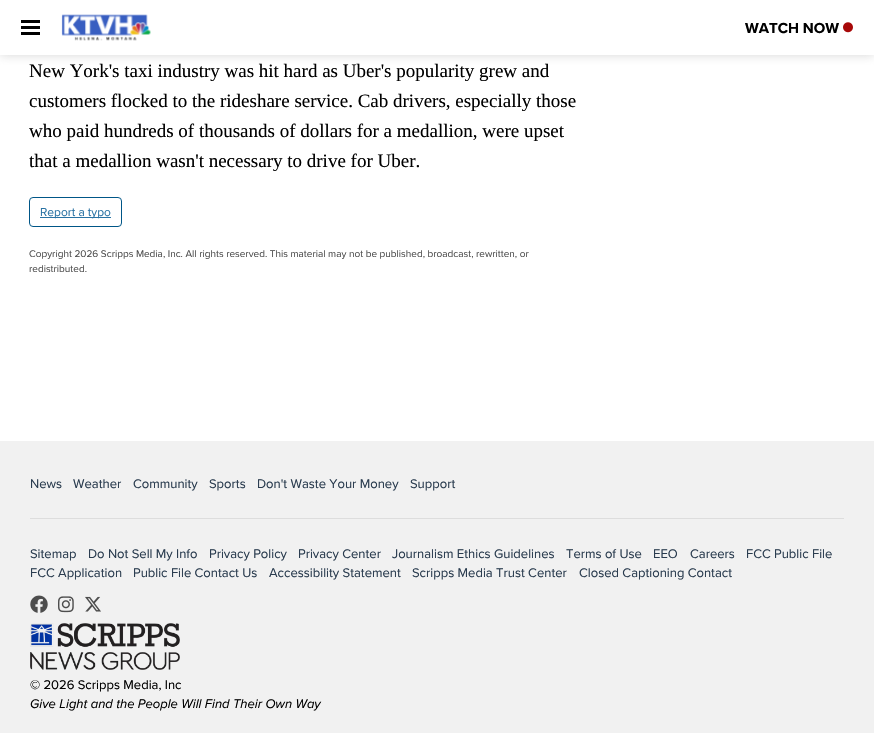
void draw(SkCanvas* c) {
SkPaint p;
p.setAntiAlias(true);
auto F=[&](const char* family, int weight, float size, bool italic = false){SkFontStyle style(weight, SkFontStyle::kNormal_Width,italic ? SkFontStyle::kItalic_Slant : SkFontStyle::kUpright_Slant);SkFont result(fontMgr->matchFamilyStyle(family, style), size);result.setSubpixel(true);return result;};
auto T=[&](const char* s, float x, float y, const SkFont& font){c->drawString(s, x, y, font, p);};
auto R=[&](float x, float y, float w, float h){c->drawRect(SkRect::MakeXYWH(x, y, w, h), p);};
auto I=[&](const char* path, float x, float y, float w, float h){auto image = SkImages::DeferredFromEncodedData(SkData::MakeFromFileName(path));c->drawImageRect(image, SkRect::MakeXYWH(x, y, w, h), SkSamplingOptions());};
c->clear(0xffffffff);
c->save();
c->clipRect(SkRect::MakeXYWH(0,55,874,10));
p.setColor(0xcccccccc);
p.setMaskFilter(SkMaskFilter::MakeBlur(kNormal_SkBlurStyle, 5));
c->drawRect(SkRect::MakeXYWH(0,0,874,55),p);
p.setMaskFilter(nullptr);
c->restore();
p.setColor(0xff000000);
R(21,20,19,3);
R(21,26,19,3);
R(21,32,19,3);
I("1.png",61,14,90,27);
auto f1 = F("Proxima Nova",700,15);
T("WATCH NOW",745,33,f1);
I("2.png",843,22,10,11);
auto f2 = F("Liberation Serif",400,19);
T("New York's taxi industry was hit hard as Uber's popularity grew and",29,77,f2);
T("customers flocked to the rideshare service. Cab drivers, especially those",29,107,f2);
T("who paid hundreds of thousands of dollars for a medallion, were upset",29,137,f2);
T("that a medallion wasn't necessary to drive for Uber.",29,167,f2);
p.setStroke(true);
p.setStrokeWidth(1);
p.setColor(0xff005687);
c->drawRoundRect(SkRect::MakeXYWH(29.5,197.5,92,29),3.5,3.5,p);
p.setStroke(false);
p.setColor(0xff2972a3);
R(40,217,71,1);
auto f3 = F("Proxima Nova",400,12);
T("Report a typo",40,216,f3);
auto f4 = F("Proxima Nova",400,10);
p.setColor(0xff4e4e4e);
T("Copyright 2026 Scripps Media, Inc. All rights reserved. This material may not be published, broadcast, rewritten, or",29,257,f4);
T("redistributed.",29,272,f4);
p.setColor(0xfff1f1f1);
R(0,441,874,292);
auto f5 = F("Proxima Nova",400,13);
p.setColor(0xff2a3c4f);
T("News",30,488,f5);
T("Weather",73,488,f5);
T("Community",133,488,f5);
T("Sports",209,488,f5);
T("Don't Waste Your Money",257,488,f5);
T("Support",410,488,f5);
p.setColor(0xffdddddd);
R(30,518,814,1);
p.setColor(0xff2a3c4f);
T("Sitemap",30,558,f5);
T("Do Not Sell My Info",88,558,f5);
T("Privacy Policy",209,558,f5);
T("Privacy Center",298,558,f5);
T("Journalism Ethics Guidelines",392,558,f5);
T("Terms of Use",566,558,f5);
T("EEO",653,558,f5);
T("Careers",690,558,f5);
T("FCC Public File",746,558,f5);
T("FCC Application",30,577,f5);
T("Public File Contact Us",133,577,f5);
T("Accessibility Statement",269,577,f5);
T("Scripps Media Trust Center",412,577,f5);
T("Closed Captioning Contact",579,577,f5);
I("3.png",30,595,18,18);
I("4.png",58,596,16,17);
I("5.png",85,596,16,16);
I("6.png",30,623,150,47);
p.setColor(0xff000000);
T("© 2026 Scripps Media, Inc",30,689,f5);
auto f6 = F("Proxima Nova",400,13,true);
T("Give Light and the People Will Find Their Own Way",30,708,f6);
}
